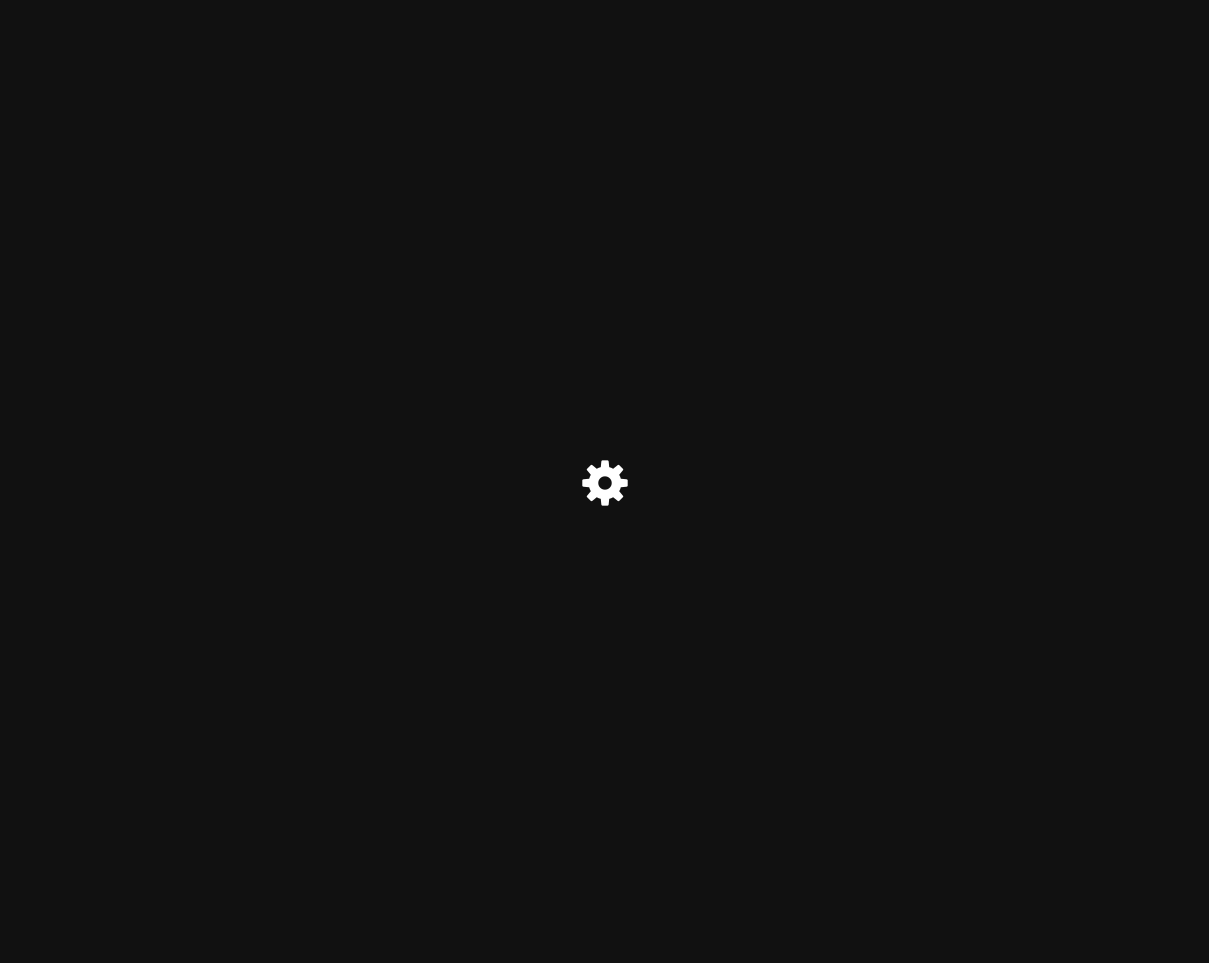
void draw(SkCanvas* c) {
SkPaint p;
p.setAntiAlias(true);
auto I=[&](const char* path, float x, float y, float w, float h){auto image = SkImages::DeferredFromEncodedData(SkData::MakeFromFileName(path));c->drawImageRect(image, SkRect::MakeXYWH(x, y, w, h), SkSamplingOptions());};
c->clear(0xff111111);
I("1.png",582,460,46,46);
}
